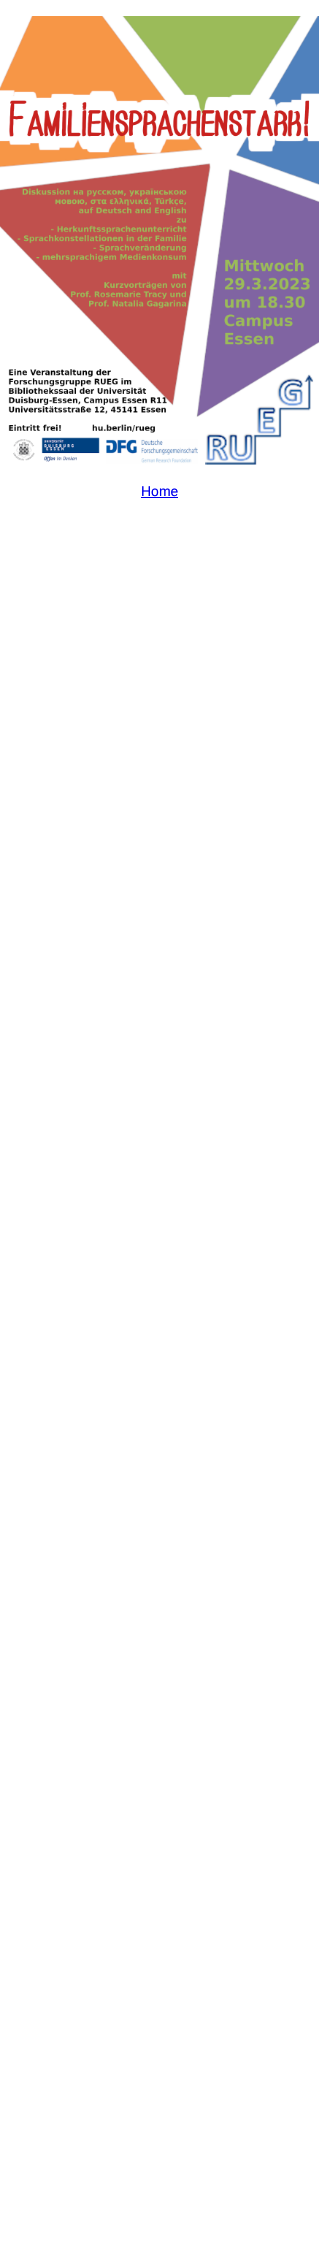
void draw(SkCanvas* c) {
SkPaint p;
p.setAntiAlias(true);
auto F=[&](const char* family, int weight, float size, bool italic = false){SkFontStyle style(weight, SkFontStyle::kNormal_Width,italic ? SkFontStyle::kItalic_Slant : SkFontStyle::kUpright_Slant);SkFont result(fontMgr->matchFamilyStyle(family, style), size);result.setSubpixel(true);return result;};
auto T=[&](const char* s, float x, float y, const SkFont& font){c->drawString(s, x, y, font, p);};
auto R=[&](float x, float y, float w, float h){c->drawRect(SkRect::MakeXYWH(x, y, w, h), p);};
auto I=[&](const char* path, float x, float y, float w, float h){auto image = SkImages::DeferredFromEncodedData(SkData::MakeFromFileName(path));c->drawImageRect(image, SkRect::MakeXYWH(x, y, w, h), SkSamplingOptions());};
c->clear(0xffffffff);
I("1.png",0,16,319,449);
auto f1 = F("Liberation Sans",400,14);
p.setColor(0xff0000ee);
T("Home",141,496,f1);
R(141,497,37,1);
}
